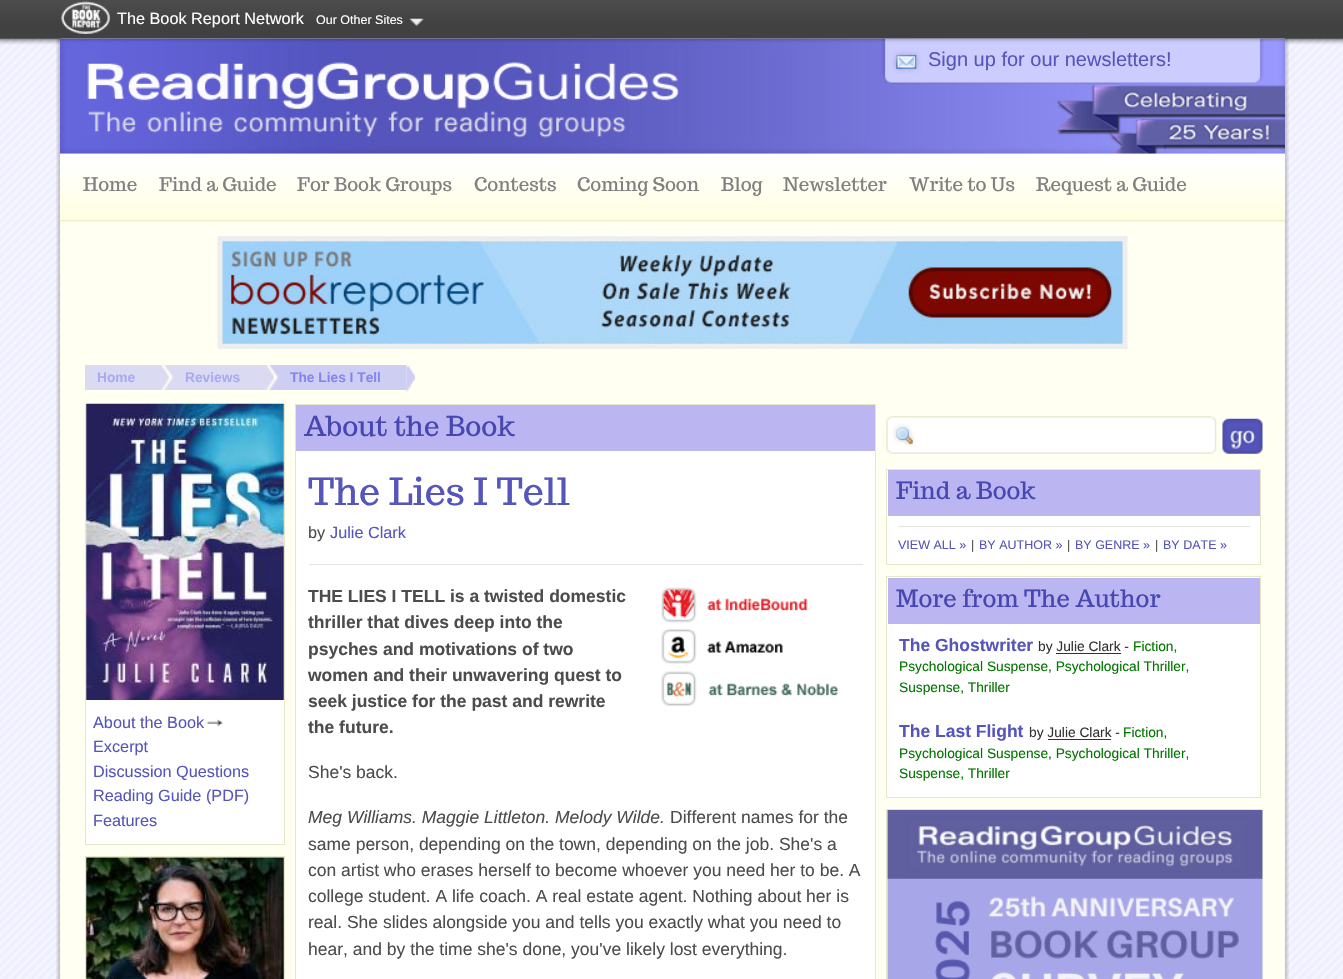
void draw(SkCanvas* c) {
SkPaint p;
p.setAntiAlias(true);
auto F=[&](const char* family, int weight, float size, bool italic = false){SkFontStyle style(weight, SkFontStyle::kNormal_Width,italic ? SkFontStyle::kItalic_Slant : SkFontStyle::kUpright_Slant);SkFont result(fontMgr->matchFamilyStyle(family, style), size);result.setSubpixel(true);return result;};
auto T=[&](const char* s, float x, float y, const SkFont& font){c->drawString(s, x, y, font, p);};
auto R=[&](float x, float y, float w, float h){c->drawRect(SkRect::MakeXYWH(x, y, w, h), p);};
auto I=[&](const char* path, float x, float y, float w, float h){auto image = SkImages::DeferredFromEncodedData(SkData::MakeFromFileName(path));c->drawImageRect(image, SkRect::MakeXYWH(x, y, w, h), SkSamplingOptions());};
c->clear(0xffffffff);
I("1.png",0,38,1343,941);
I("2.png",0,0,1343,45);
I("3.png",61,1,49,33);
auto f1 = F("Liberation Sans",400,16.25);
p.setColor(0xffffffff);
T("The Book Report Network",117,24,f1);
I("4.png",410,18,14,9);
auto f2 = F("Liberation Sans",400,12.5);
T("Our Other Sites",316,24,f2);
I("5.png",56,38,1233,941);
I("6.png",60,38,1225,116);
I("7.png",87,62,592,76);
I("8.png",881,38,383,47);
auto f3 = F("Liberation Sans",400,20);
p.setColor(0xff5555bb);
T("Sign up for our newsletters!",928,66,f3);
I("9.png",60,153,1225,69);
auto f4 = F("Trocchi",400,18.75);
p.setColor(0xff808080);
T("Home",83,191,f4);
T("Find a Guide",159,191,f4);
T("For Book Groups",297,191,f4);
T("Contests",474,191,f4);
T("Coming Soon",577,191,f4);
T("Blog",721,191,f4);
T("Newsletter",783,191,f4);
T("Write to Us",909,191,f4);
T("Request a Guide",1036,191,f4);
I("10.png",217,236,911,113);
I("11.png",406,366,9,26);
p.setColor(0xffdadaf2);
R(85,365,75,25);
auto f5 = F("Liberation Sans",700,13.75);
p.setColor(0xffaaaaf2);
T("Home",97,382,f5);
I("12.png",160,365,105,25);
T("Reviews",185,382,f5);
I("13.png",265,365,142,25);
p.setColor(0xff8585f2);
T("The Lies I Tell",290,382,f5);
p.setColor(0xffffffff);
R(86,404,198,440);
I("14.png",86,403,198,297);
p.setColor(0xffe6e6c8);
R(284,404,1,441);
R(85,844,200,1);
R(85,404,1,441);
p.setColor(0xff5555bb);
T("About the Book",93,728,f1);
I("15.png",207,719,16,8);
T("Excerpt",93,752,f1);
T("Discussion Questions",93,777,f1);
T("Reading Guide (PDF)",93,801,f1);
T("Features",93,826,f1);
p.setColor(0xffffffff);
c->drawRect(SkRect::MakeXYWH(85.5,856.5,199,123),p);
p.setStroke(true);
p.setStrokeWidth(1);
p.setColor(0xffe6e6c8);
c->drawRect(SkRect::MakeXYWH(85.5,856.5,199,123),p);
I("16.png",86,857,198,122);
p.setStroke(false);
p.setColor(0xffffffff);
R(296,451,579,528);
p.setStroke(true);
p.setColor(0xffe6e6c8);
c->drawRect(SkRect::MakeXYWH(295.5,404.5,580,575),p);
p.setStroke(false);
p.setColor(0xffbbb6f2);
R(296,405,579,46);
auto f6 = F("Trocchi",400,27.5);
p.setColor(0xff4747b2);
T("About the Book",304,436,f6);
auto f7 = F("Trocchi",400,37.5);
p.setColor(0xff5555bb);
T("The Lies I Tell",308,505,f7);
p.setColor(0xff4c4c4c);
T("by",308,538,f1);
p.setColor(0xff5555bb);
T("Julie Clark",330,538,f1);
p.setColor(0xffe3e3e3);
R(309,564,554,1);
auto f8 = F("Liberation Sans",700,17.5);
p.setColor(0xff4c4c4c);
T("THE LIES I TELL is a twisted domestic",308,602,f8);
T("thriller that dives deep into the",308,628,f8);
T("psyches and motivations of two",308,655,f8);
T("women and their unwavering quest to",308,681,f8);
T("seek justice for the past and rewrite",308,707,f8);
T("the future.",308,733,f8);
I("17.png",661,587,147,36);
I("18.png",661,628,122,36);
I("19.png",661,671,177,36);
auto f9 = F("Liberation Sans",400,17.5);
T("She's back.",308,778,f9);
auto f10 = F("Liberation Sans",400,17.5,true);
T("Meg Williams. Maggie Littleton. Melody Wilde.",308,823,f10);
T("Different names for the",670,823,f9);
T("same person, depending on the town, depending on the job. She's a",308,850,f9);
T("con artist who erases herself to become whoever you need her to be. A",308,876,f9);
T("college student. A life coach. A real estate agent. Nothing about her is",308,902,f9);
T("real. She slides alongside you and tells you exactly what you need to",308,928,f9);
T("hear, and by the time she's done, you've likely lost everything.",308,955,f9);
I("20.png",886,416,331,38);
I("21.png",1222,418,41,36);
p.setColor(0xffffffff);
c->drawRect(SkRect::MakeXYWH(886.5,469.5,374,95),p);
p.setStroke(true);
p.setColor(0xffe6e6c8);
c->drawRect(SkRect::MakeXYWH(886.5,469.5,374,95),p);
p.setStroke(false);
p.setColor(0xffbbb6f2);
R(888,470,372,46);
auto f11 = F("Trocchi",400,23.75);
p.setColor(0xff4747b2);
T("Find a Book",896,499,f11);
p.setColor(0xffe3e3e3);
R(898,526,352,1);
p.setColor(0xff5555bb);
T("VIEW ALL »",898,549,f2);
p.setColor(0xff4c4c4c);
T("|",971,549,f2);
p.setColor(0xff5555bb);
T("BY AUTHOR »",979,549,f2);
p.setColor(0xff4c4c4c);
T("|",1067,549,f2);
p.setColor(0xff5555bb);
T("BY GENRE »",1075,549,f2);
p.setColor(0xff4c4c4c);
T("|",1155,549,f2);
p.setColor(0xff5555bb);
T("BY DATE »",1163,549,f2);
p.setColor(0xffffffff);
c->drawRect(SkRect::MakeXYWH(886.5,576.5,374,221),p);
p.setStroke(true);
p.setColor(0xffe6e6c8);
c->drawRect(SkRect::MakeXYWH(886.5,576.5,374,221),p);
p.setStroke(false);
p.setColor(0xffbbb6f2);
R(888,578,372,46);
p.setColor(0xff4747b2);
T("More from The Author",896,607,f11);
p.setColor(0xff5555bb);
T("The Ghostwriter",899,651,f8);
auto f12 = F("Liberation Sans",400,13.75);
p.setColor(0xff333333);
T("by Julie Clark -",1038,651,f12);
R(1056,653,65,1);
p.setColor(0xff027500);
T("Fiction,",1133,651,f12);
T("Psychological Suspense, Psychological Thriller,",899,671,f12);
T("Suspense, Thriller",899,692,f12);
p.setColor(0xff5555bb);
T("The Last Flight",899,737,f8);
p.setColor(0xff333333);
T("by Julie Clark -",1029,737,f12);
R(1048,739,63,1);
p.setColor(0xff027500);
T("Fiction,",1123,737,f12);
T("Psychological Suspense, Psychological Thriller,",899,758,f12);
T("Suspense, Thriller",899,778,f12);
p.setColor(0xffffffff);
R(887,810,1,169);
p.setStroke(true);
p.setColor(0xffe6e6c8);
c->drawRect(SkRect::MakeXYWH(886.5,809.5,374,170),p);
I("22.png",887,810,376,169);
}
